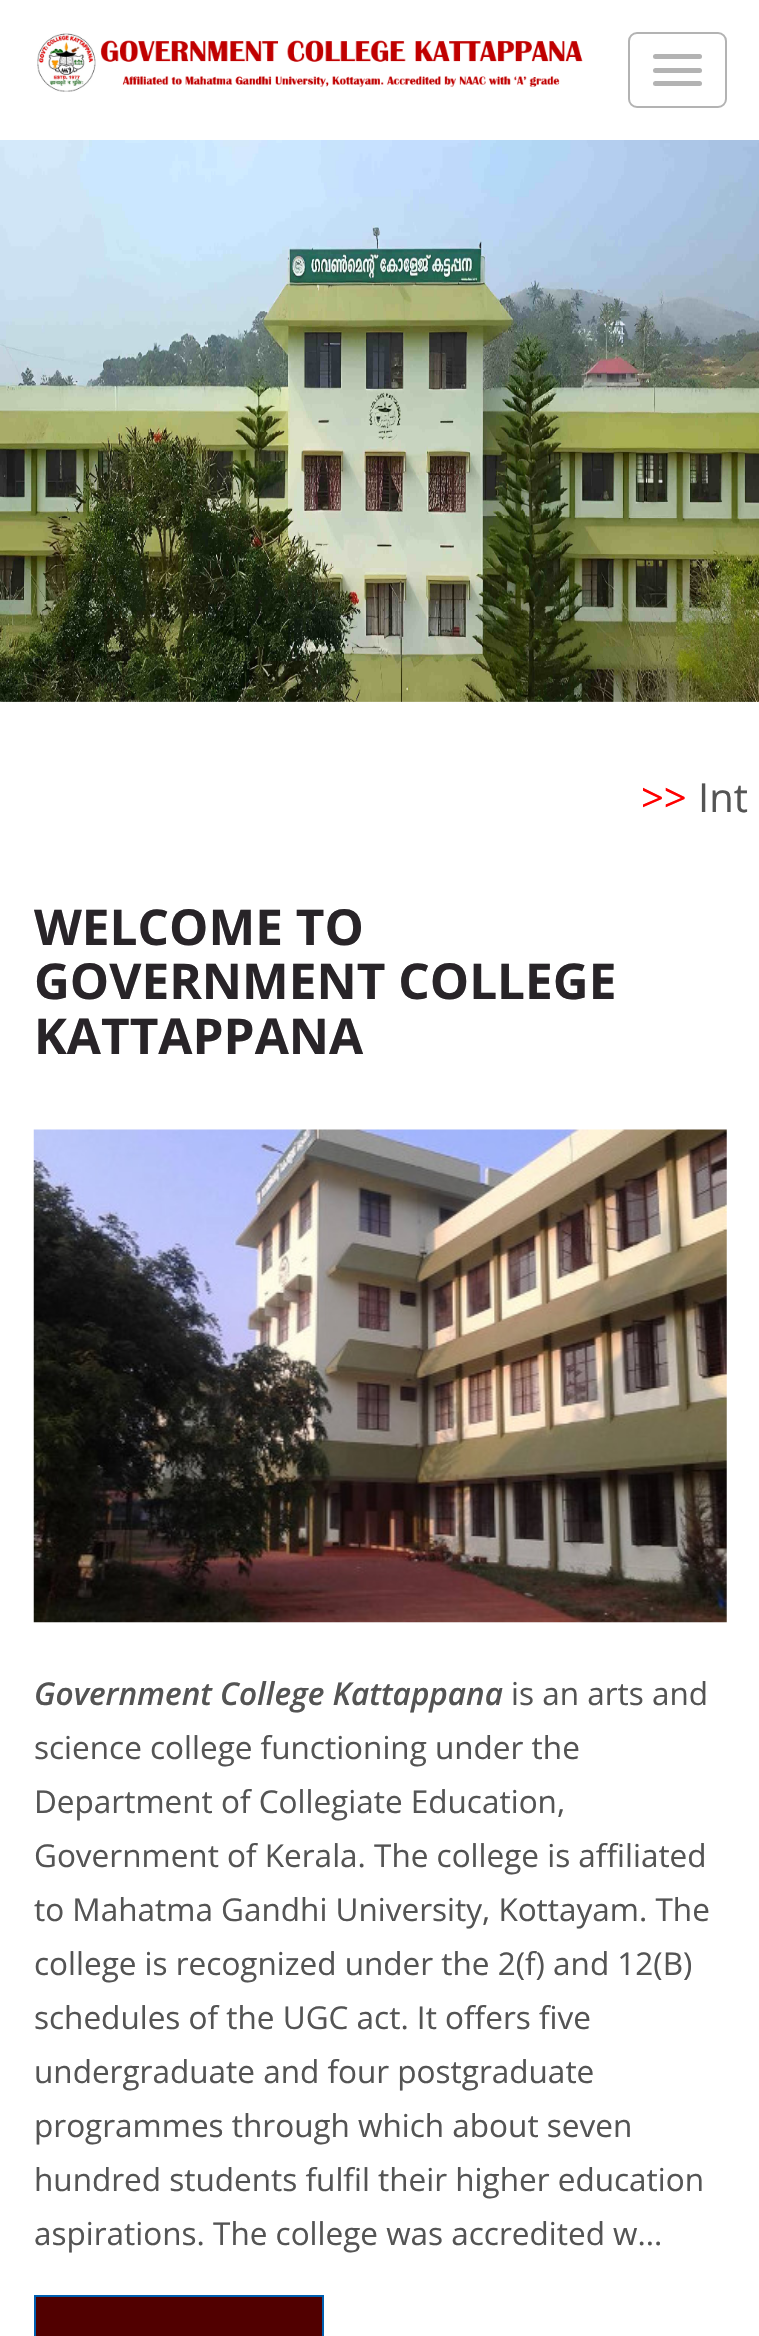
void draw(SkCanvas* c) {
SkPaint p;
p.setAntiAlias(true);
auto F=[&](const char* family, int weight, float size, bool italic = false){SkFontStyle style(weight, SkFontStyle::kNormal_Width,italic ? SkFontStyle::kItalic_Slant : SkFontStyle::kUpright_Slant);SkFont result(fontMgr->matchFamilyStyle(family, style), size);result.setSubpixel(true);return result;};
auto T=[&](const char* s, float x, float y, const SkFont& font){c->drawString(s, x, y, font, p);};
auto Q=[&](float x, float y, float w, float h, float radius){c->drawRoundRect(SkRect::MakeXYWH(x, y, w, h), radius, radius, p);};
auto I=[&](const char* path, float x, float y, float w, float h){auto image = SkImages::DeferredFromEncodedData(SkData::MakeFromFileName(path));c->drawImageRect(image, SkRect::MakeXYWH(x, y, w, h), SkSamplingOptions());};
c->clear(0xffffffff);
I("1.png",37,33,546,59);
p.setStroke(true);
p.setStrokeWidth(2);
p.setColor(0xffb3b3b3);
c->drawRoundRect(SkRect::MakeXYWH(629,33,97,74),8,8,p);
p.setStroke(false);
Q(653,54,49,5,2.5);
Q(653,68,49,5,2.5);
Q(653,81,49,5,2.5);
I("2.png",0,140,759,562);
auto f1 = F("Open Sans",400,40);
p.setColor(0xffff0000);
T(">>",641,812,f1);
p.setColor(0xff545454);
T("Int",698,812,f1);
auto f2 = F("Open Sans",700,49.5);
p.setColor(0xff282428);
T("WELCOME TO",34,945,f2);
T("GOVERNMENT COLLEGE",34,999,f2);
T("KATTAPPANA",34,1054,f2);
I("3.png",33,1129,694,494);
auto f3 = F("Open Sans",600,31.5,true);
p.setColor(0xff545454);
T("Government College Kattappana",34,1705,f3);
auto f4 = F("Open Sans",400,31.5);
T("is an arts and",511,1705,f4);
T("science college functioning under the",34,1759,f4);
T("Department of Collegiate Education,",34,1813,f4);
T("Government of Kerala. The college is affiliated",34,1867,f4);
T("to Mahatma Gandhi University, Kottayam. The",34,1921,f4);
T("college is recognized under the 2(f) and 12(B)",34,1975,f4);
T("schedules of the UGC act. It offers five",34,2029,f4);
T("undergraduate and four postgraduate",34,2083,f4);
T("programmes through which about seven",34,2137,f4);
T("hundred students fulfil their higher education",34,2191,f4);
T("aspirations. The college was accredited w...",34,2245,f4);
p.setColor(0xff510000);
c->drawRect(SkRect::MakeXYWH(35,2296,288,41),p);
p.setStroke(true);
p.setColor(0xff0060b1);
c->drawRect(SkRect::MakeXYWH(35,2296,288,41),p);
}
